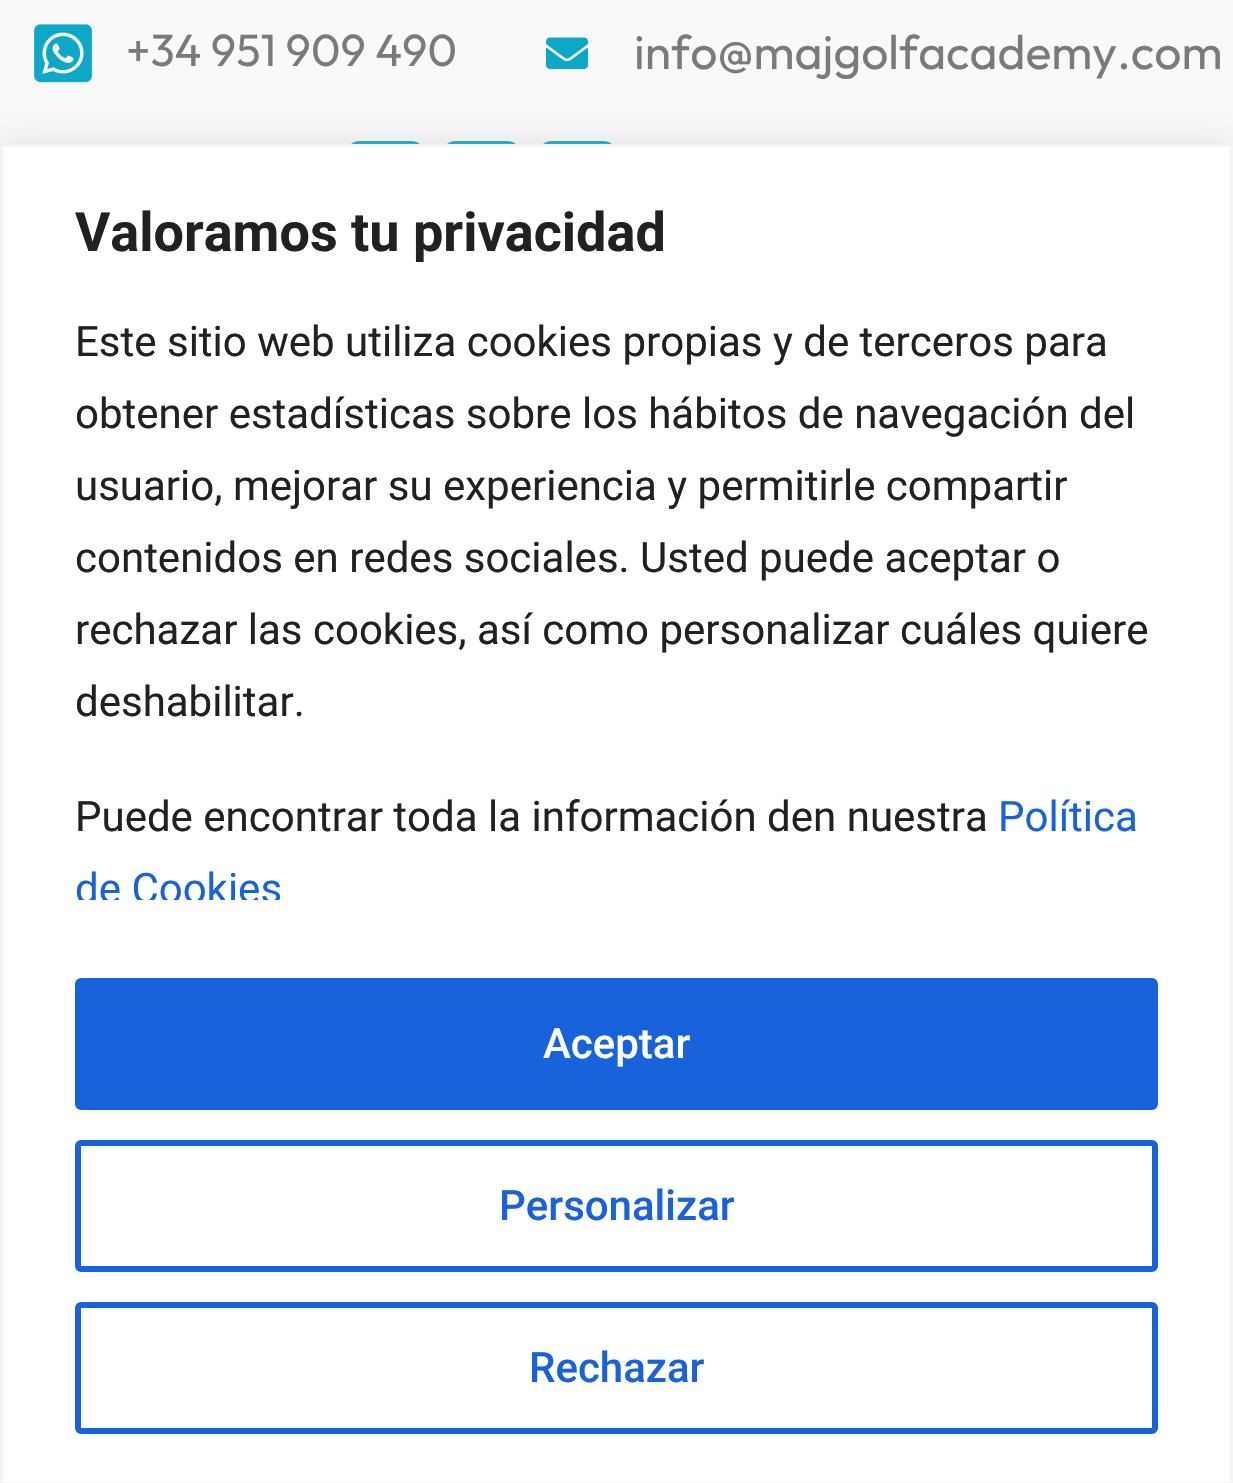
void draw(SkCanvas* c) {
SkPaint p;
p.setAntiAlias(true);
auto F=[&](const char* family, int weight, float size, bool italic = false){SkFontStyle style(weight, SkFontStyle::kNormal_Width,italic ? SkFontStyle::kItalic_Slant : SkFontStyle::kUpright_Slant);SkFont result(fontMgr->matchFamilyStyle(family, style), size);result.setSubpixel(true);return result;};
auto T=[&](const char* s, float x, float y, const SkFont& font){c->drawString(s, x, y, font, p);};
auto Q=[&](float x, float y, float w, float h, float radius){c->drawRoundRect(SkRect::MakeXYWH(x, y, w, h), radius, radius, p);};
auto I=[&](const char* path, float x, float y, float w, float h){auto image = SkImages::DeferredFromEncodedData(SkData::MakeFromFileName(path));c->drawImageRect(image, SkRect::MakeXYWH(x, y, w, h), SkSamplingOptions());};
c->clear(0xfff9f9f9);
I("1.png",34,24,58,59);
auto f1 = F("Outfit",400,45);
p.setColor(0xff7a7a7a);
T("+34 951 909 490",126,66,f1);
I("2.png",546,37,42,32);
auto f2 = F("Outfit",400,48);
T("info@majgolfacademy.com",634,69,f2);
p.setColor(0xff0da8c7);
Q(345,141,81,81,15);
Q(441,141,81,81,15);
Q(537,141,81,81,15);
p.setColor(0x4dacabab);
p.setMaskFilter(SkMaskFilter::MakeBlur(kNormal_SkBlurStyle, 15));
c->drawRect(SkRect::MakeXYWH(0,141,1233,1341),p);
p.setMaskFilter(nullptr);
p.setColor(0xffffffff);
c->drawRect(SkRect::MakeXYWH(1.5,145.5,1230,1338),p);
p.setStroke(true);
p.setStrokeWidth(3);
p.setColor(0xfff4f4f4);
c->drawRect(SkRect::MakeXYWH(1.5,145.5,1230,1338),p);
auto f3 = F("Roboto",700,54);
p.setStroke(false);
p.setColor(0xff212121);
T("Valoramos tu privacidad",75,251,f3);
auto f4 = F("Roboto",400,42);
T("Este sitio web utiliza cookies propias y de terceros para",75,356,f4);
T("obtener estadísticas sobre los hábitos de navegación del",75,428,f4);
T("usuario, mejorar su experiencia y permitirle compartir",75,500,f4);
T("contenidos en redes sociales. Usted puede aceptar o",75,572,f4);
T("rechazar las cookies, así como personalizar cuáles quiere",75,644,f4);
T("deshabilitar.",75,716,f4);
T("Puede encontrar toda la información den nuestra",75,831,f4);
p.setColor(0xff1863dc);
T("Política",998,831,f4);
c->save();
c->clipRect(SkRect::MakeXYWH(3,306,1227,594));
T("de Cookies",75,903,f4);
c->restore();
c->drawRoundRect(SkRect::MakeXYWH(78,981,1077,126),3,3,p);
p.setStroke(true);
p.setStrokeWidth(6);
c->drawRoundRect(SkRect::MakeXYWH(78,981,1077,126),3,3,p);
auto f5 = F("Roboto",500,42);
p.setStroke(false);
p.setColor(0xffffffff);
T("Aceptar",543,1058,f5);
p.setStroke(true);
p.setColor(0xff1863dc);
c->drawRoundRect(SkRect::MakeXYWH(78,1143,1077,126),3,3,p);
p.setStroke(false);
T("Personalizar",499,1220,f5);
p.setStroke(true);
c->drawRoundRect(SkRect::MakeXYWH(78,1305,1077,126),3,3,p);
p.setStroke(false);
T("Rechazar",529,1382,f5);
}
